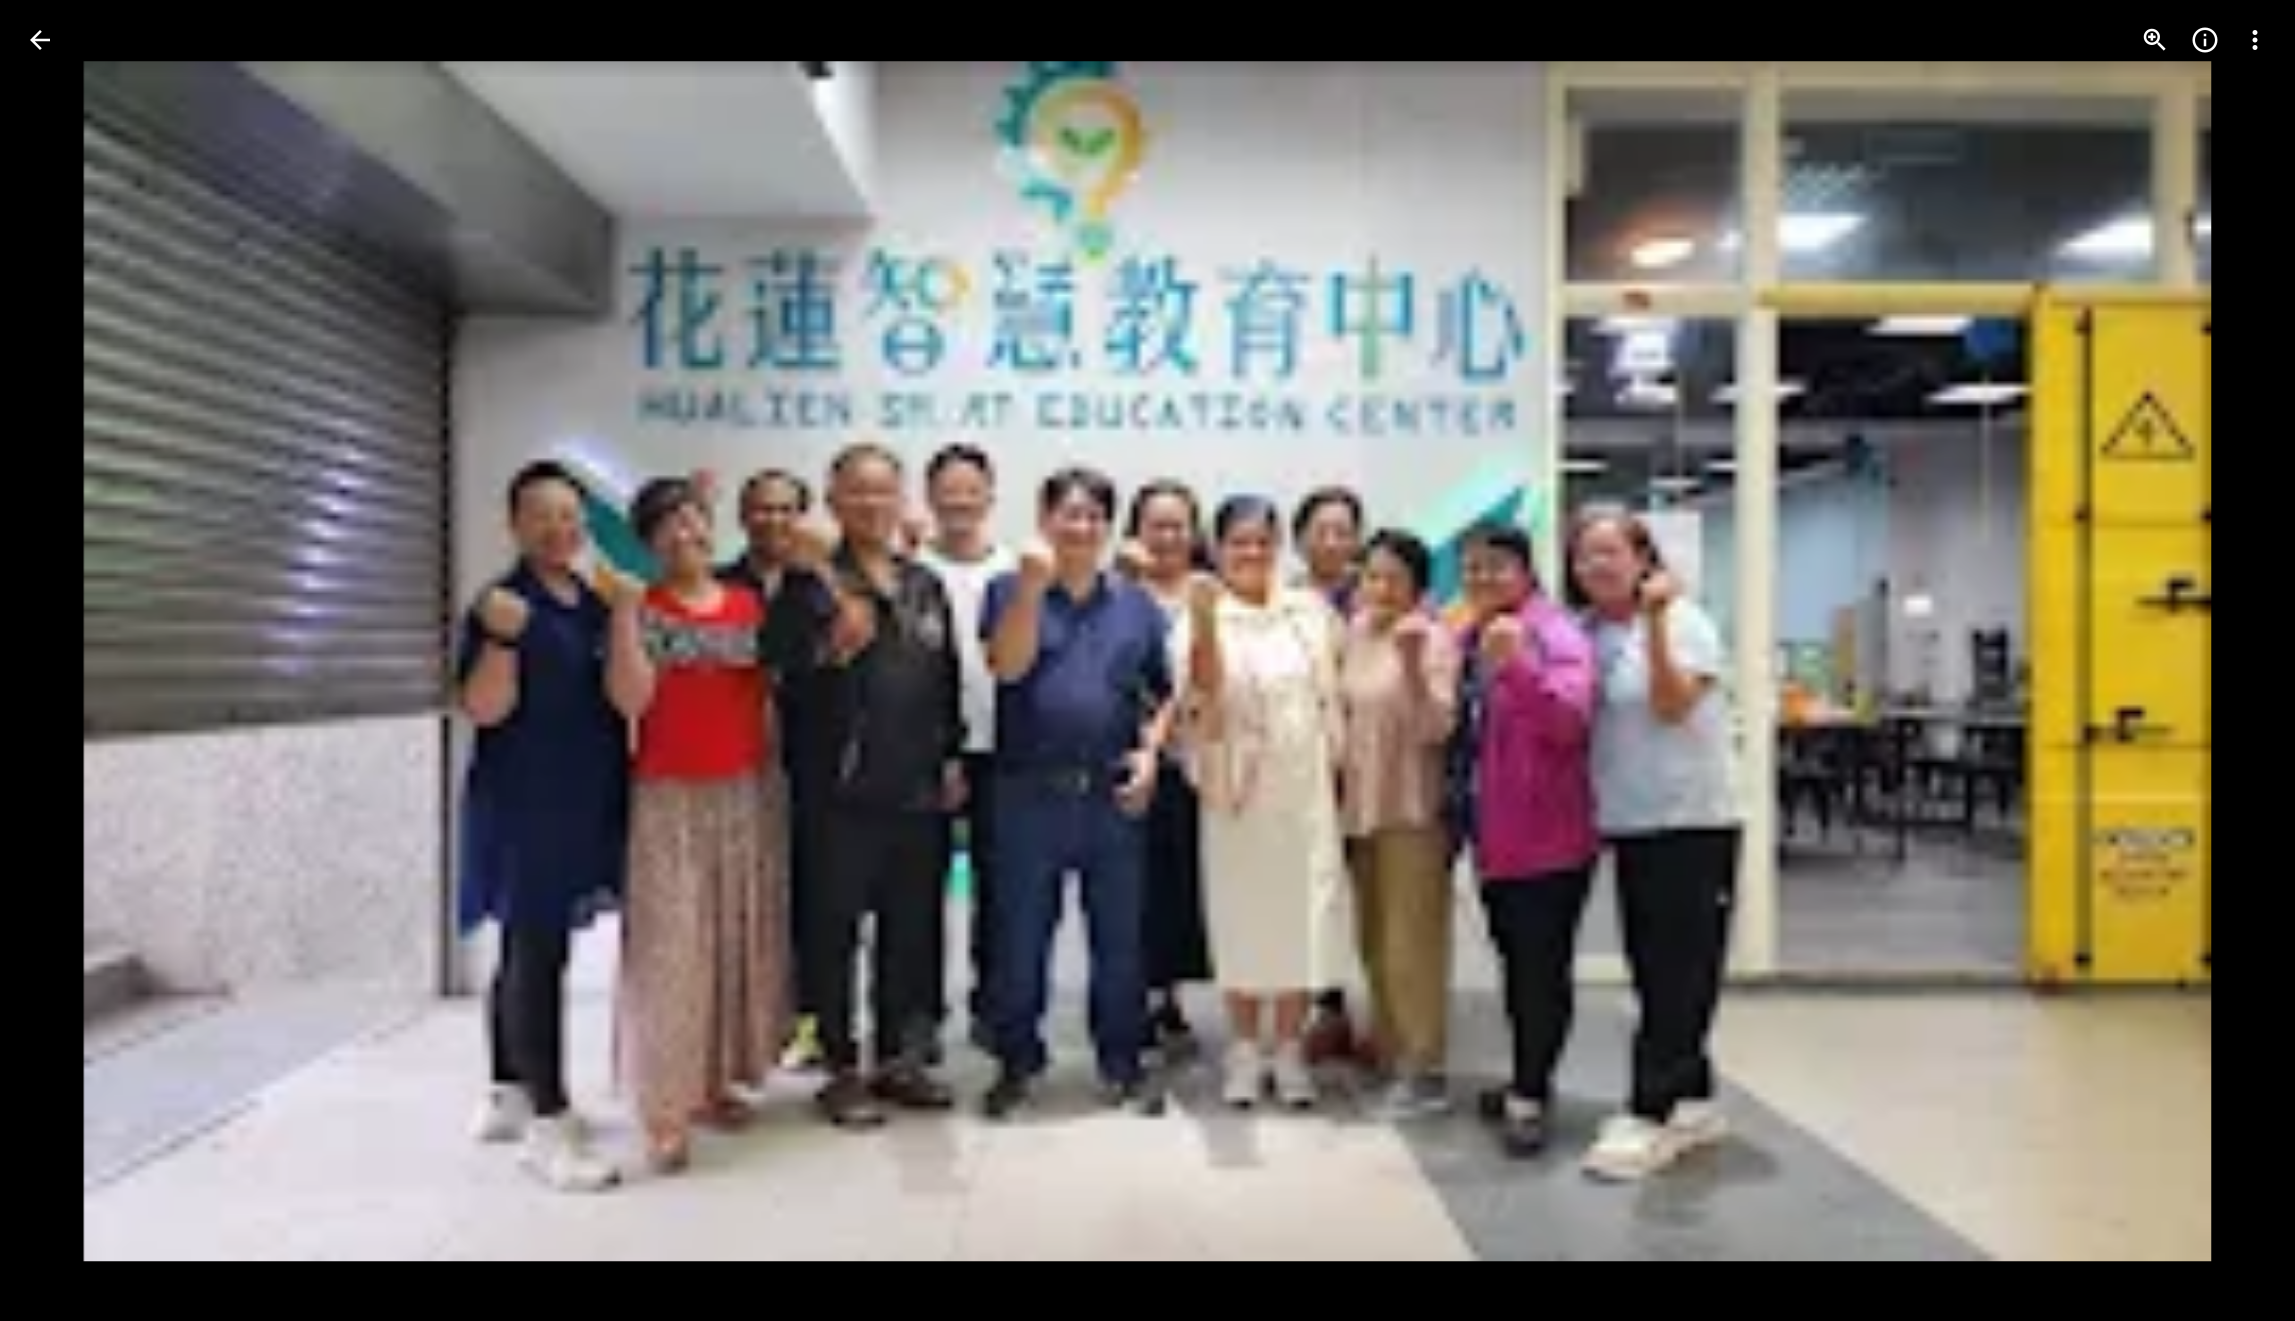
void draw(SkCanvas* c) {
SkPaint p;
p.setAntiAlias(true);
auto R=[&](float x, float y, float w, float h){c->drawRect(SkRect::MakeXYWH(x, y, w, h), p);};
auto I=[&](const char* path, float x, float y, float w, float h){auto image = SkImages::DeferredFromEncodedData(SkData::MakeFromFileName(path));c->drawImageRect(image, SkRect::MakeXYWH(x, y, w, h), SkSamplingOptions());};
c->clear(0xff000000);
I("5.png",83,61,2129,1201);
{
const SkColor colors[] = {0x99000000,0x00000000};
const float stops[] = {0,1};
const SkPoint ends[] = {{1148,0}, {1148,80}};
p.setShader(SkGradientShader::MakeLinear(ends, colors, stops, 2, SkTileMode::kClamp));
p.setAlpha(255);
}
R(83,61,2129,16);
I("1.png",30,30,20,20);
I("2.png",2143,28,23,23);
I("3.png",2192,27,26,26);
I("4.png",2252,30,6,20);
}
